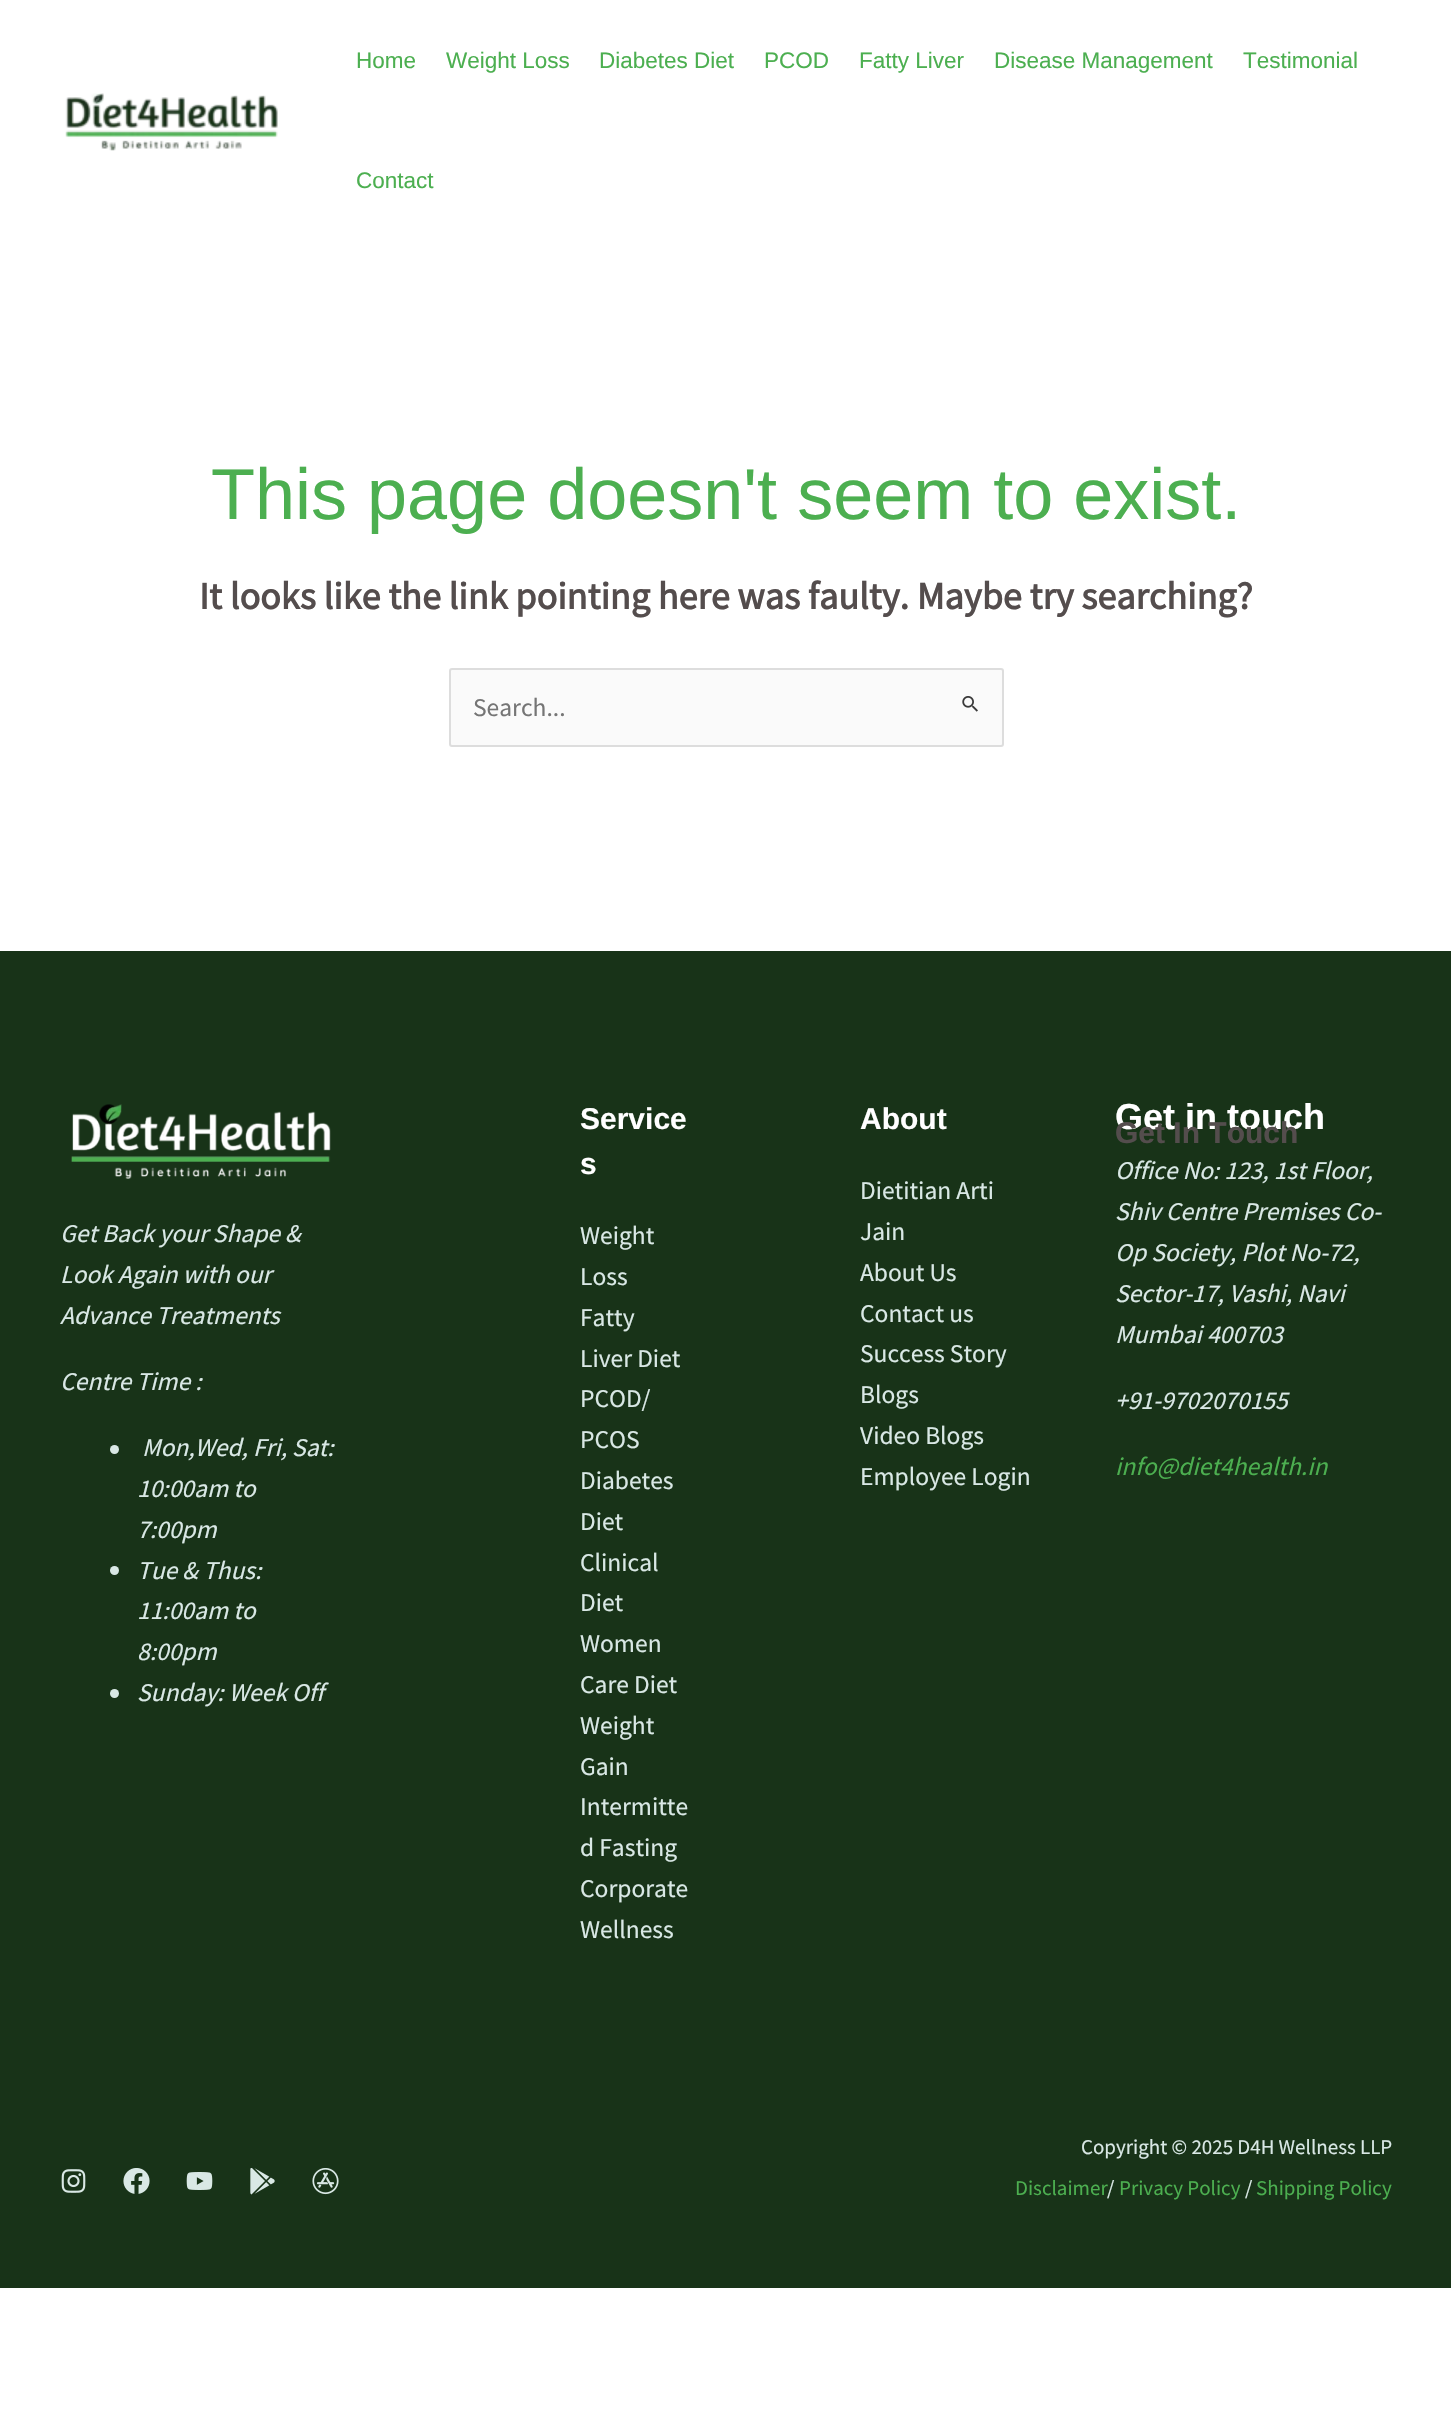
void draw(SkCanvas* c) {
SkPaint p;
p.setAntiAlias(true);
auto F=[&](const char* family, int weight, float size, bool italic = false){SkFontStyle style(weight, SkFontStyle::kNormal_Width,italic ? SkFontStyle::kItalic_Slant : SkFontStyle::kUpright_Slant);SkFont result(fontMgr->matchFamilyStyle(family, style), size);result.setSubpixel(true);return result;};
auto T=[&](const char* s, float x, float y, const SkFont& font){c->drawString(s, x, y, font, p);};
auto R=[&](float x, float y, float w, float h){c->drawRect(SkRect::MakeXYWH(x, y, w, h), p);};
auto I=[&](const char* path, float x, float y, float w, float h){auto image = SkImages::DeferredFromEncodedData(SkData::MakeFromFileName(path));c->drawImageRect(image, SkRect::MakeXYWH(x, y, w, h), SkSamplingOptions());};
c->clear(0xffffffff);
I("1.png",65,93,213,58);
auto f1 = F("Liberation Sans",400,22.5);
p.setColor(0xff4caf50);
T("Home",356,68,f1);
T("Weight Loss",446,68,f1);
T("Diabetes Diet",599,68,f1);
T("PCOD",764,68,f1);
T("Fatty Liver",859,68,f1);
T("Disease Management",994,68,f1);
T("Testimonial",1243,68,f1);
T("Contact",356,188,f1);
auto f2 = F("Liberation Sans",400,72);
T("This page doesn't seem to exist.",211,519,f2);
auto f3 = F("Source Sans Pro",700,38.25);
p.setColor(0xff544d4d);
T("It looks like the link pointing here was faulty. Maybe try searching?",199,609,f3);
p.setColor(0xfffafafa);
c->drawRoundRect(SkRect::MakeXYWH(450,669,553,77),2,2,p);
p.setStroke(true);
p.setStrokeWidth(2);
p.setColor(0xffdddddd);
c->drawRoundRect(SkRect::MakeXYWH(450,669,553,77),2,2,p);
auto f4 = F("Source Sans Pro",400,25.5);
p.setStroke(false);
p.setColor(0xff757575);
T("Search...",473,716,f4);
I("2.png",962,696,16,16);
p.setColor(0xff183318);
R(0,951,1451,1095);
I("3.png",71,1104,260,75);
auto f5 = F("Source Sans Pro",400,25.5,true);
p.setColor(0xffd9e8e5);
T("Get Back your Shape &",60,1242,f5);
T("Look Again with our",60,1283,f5);
T("Advance Treatments",60,1324,f5);
T("Centre Time :",60,1390,f5);
c->drawCircle(114.5,1449.5,4.5,p);
T("Mon,Wed, Fri, Sat:",142,1456,f5);
T("10:00am to",137,1497,f5);
T("7:00pm",137,1538,f5);
c->drawCircle(114.5,1570.5,4.5,p);
T("Tue & Thus:",137,1579,f5);
T("11:00am to",137,1619,f5);
T("8:00pm",137,1660,f5);
c->drawCircle(114.5,1693.5,4.5,p);
T("Sunday: Week Off",137,1701,f5);
auto f6 = F("Liberation Sans",700,30);
p.setColor(0xffffffff);
T("Service",580,1129,f6);
T("s",580,1174,f6);
p.setColor(0xffd9e8e5);
T("Weight",580,1244,f4);
T("Loss",580,1285,f4);
T("Fatty",580,1326,f4);
T("Liver Diet",580,1367,f4);
T("PCOD/",580,1407,f4);
T("PCOS",580,1448,f4);
T("Diabetes",580,1489,f4);
T("Diet",580,1530,f4);
T("Clinical",580,1571,f4);
T("Diet",580,1611,f4);
T("Women",580,1652,f4);
T("Care Diet",580,1693,f4);
T("Weight",580,1734,f4);
T("Gain",580,1775,f4);
T("Intermitte",580,1815,f4);
T("d Fasting",580,1856,f4);
T("Corporate",580,1897,f4);
T("Wellness",580,1938,f4);
p.setColor(0xffffffff);
T("About",860,1129,f6);
p.setColor(0xffd9e8e5);
T("Dietitian Arti",860,1199,f4);
T("Jain",860,1240,f4);
T("About Us",860,1281,f4);
T("Contact us",860,1322,f4);
T("Success Story",860,1362,f4);
T("Blogs",860,1403,f4);
T("Video Blogs",860,1444,f4);
T("Employee Login",860,1485,f4);
auto f7 = F("Liberation Sans",700,36);
p.setColor(0xffffffff);
T("Get in touch",1115,1129,f7);
p.setColor(0xff544d4d);
T("Get In Touch",1115,1143,f6);
p.setColor(0xffd9e8e5);
T("Office No: 123, 1st Floor,",1115,1179,f5);
T("Shiv Centre Premises Co-",1115,1220,f5);
T("Op Society, Plot No-72,",1115,1261,f5);
T("Sector-17, Vashi, Navi",1115,1302,f5);
T("Mumbai 400703",1115,1343,f5);
T("+91-9702070155",1115,1409,f5);
p.setColor(0xff4caf50);
T("info@diet4health.in",1115,1475,f5);
p.setColor(0xff183318);
R(0,2046,1451,242);
I("4.png",61,2169,25,24);
I("5.png",123,2168,27,26);
I("6.png",186,2172,27,18);
I("7.png",250,2168,25,27);
I("8.png",312,2168,27,27);
auto f8 = F("Source Sans Pro",400,21);
p.setColor(0xffd9e8e5);
T("Copyright © 2025 D4H Wellness LLP",1081,2154,f8);
p.setColor(0xff4caf50);
T("Disclaimer",1015,2195,f8);
p.setColor(0xffd9e8e5);
T("/",1107,2195,f8);
p.setColor(0xff4caf50);
T("Privacy Policy",1119,2195,f8);
p.setColor(0xffd9e8e5);
T("/",1245,2195,f8);
p.setColor(0xff4caf50);
T("Shipping Policy",1256,2195,f8);
}
